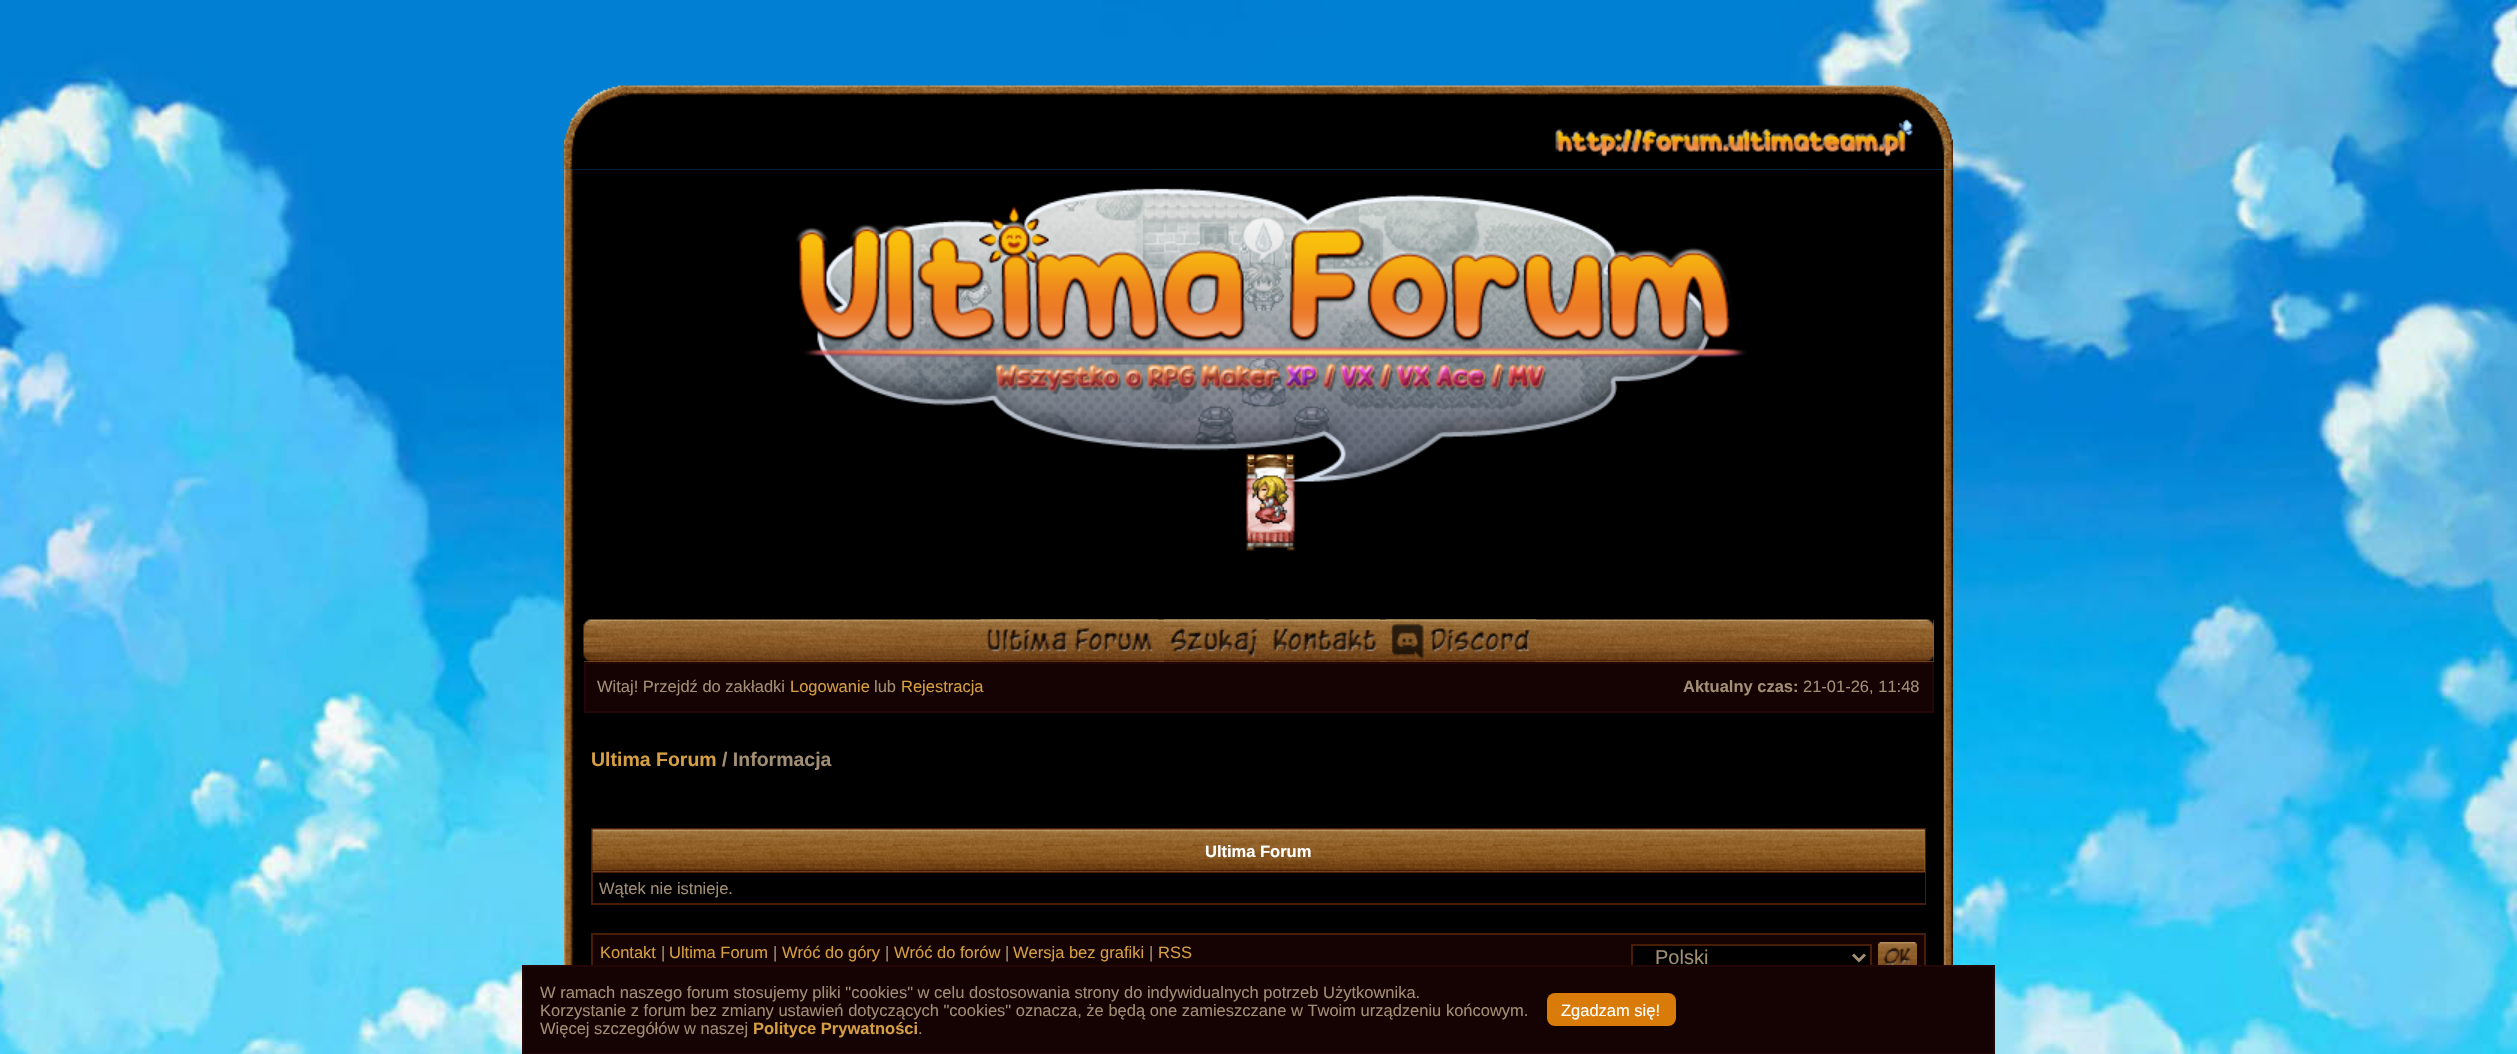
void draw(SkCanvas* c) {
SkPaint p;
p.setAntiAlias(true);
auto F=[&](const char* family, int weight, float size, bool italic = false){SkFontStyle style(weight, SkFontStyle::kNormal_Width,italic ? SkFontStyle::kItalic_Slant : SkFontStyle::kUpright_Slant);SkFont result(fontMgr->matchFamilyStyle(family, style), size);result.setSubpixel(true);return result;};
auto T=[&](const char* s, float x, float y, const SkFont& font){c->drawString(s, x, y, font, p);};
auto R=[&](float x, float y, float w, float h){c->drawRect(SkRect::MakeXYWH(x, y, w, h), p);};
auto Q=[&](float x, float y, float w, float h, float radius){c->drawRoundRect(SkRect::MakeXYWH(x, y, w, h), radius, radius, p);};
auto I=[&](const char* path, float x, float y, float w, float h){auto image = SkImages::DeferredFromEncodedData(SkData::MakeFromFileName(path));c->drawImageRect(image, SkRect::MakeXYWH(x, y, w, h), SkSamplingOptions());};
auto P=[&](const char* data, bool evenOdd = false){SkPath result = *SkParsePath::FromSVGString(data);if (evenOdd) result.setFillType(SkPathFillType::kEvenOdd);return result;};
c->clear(0xffffffff);
I("1.png",0,0,2517,1054);
I("2.png",564,85,1389,85);
I("3.png",564,169,1389,796);
I("4.png",796,188,951,363);
p.setColor(0xff976a36);
R(584,620,1350,42);
I("5.png",583,619,1351,43);
I("6.png",981,619,177,43);
I("7.png",1164,619,101,43);
I("8.png",1269,619,111,43);
I("9.png",1386,619,150,43);
p.setColor(0xff150202);
c->drawRect(SkRect::MakeXYWH(585,663,1348,49),p);
p.setStroke(true);
p.setStrokeWidth(2);
p.setColor(0xff230707);
c->drawRect(SkRect::MakeXYWH(585,663,1348,49),p);
auto f1 = F("Liberation Sans",400,16.5);
p.setStroke(false);
p.setColor(0xffa18e73);
T("Witaj! Przejdź do zakładki",597,692,f1);
p.setColor(0xffd49e43);
T("Logowanie",790,692,f1);
p.setColor(0xffa18e73);
T("lub",874,692,f1);
p.setColor(0xffd49e43);
T("Rejestracja",901,692,f1);
auto f2 = F("Liberation Sans",700,16.5);
p.setColor(0xffa18e73);
T("Aktualny czas:",1683,692,f2);
T("21-01-26, 11:48",1803,692,f1);
auto f3 = F("Liberation Sans",700,19.5);
p.setColor(0xffd49e43);
T("Ultima Forum",591,766,f3);
p.setColor(0xffa18e73);
T("/ Informacja",722,766,f3);
p.setColor(0xff471e05);
R(591,828,1335,77);
p.setColor(0xff976a36);
R(593,830,1332,42);
I("10.png",592,829,1333,43);
p.setColor(0xffffffff);
T("Ultima Forum",1205,857,f2);
p.setColor(0xff000000);
R(593,873,1332,30);
p.setColor(0xffa18e73);
T("Wątek nie istnieje.",599,894,f1);
p.setColor(0xff150202);
R(593,935,1331,30);
p.setStroke(true);
p.setColor(0xff471e05);
c->drawRect(SkRect::MakeXYWH(592,934,1333,46),p);
p.setStroke(false);
p.setColor(0xffd49e43);
T("Kontakt",600,958,f1);
p.setColor(0xffa18e73);
T("|",661,958,f1);
p.setColor(0xffd49e43);
T("Ultima Forum",669,958,f1);
p.setColor(0xffa18e73);
T("|",773,958,f1);
p.setColor(0xffd49e43);
T("Wróć do góry",782,958,f1);
p.setColor(0xffa18e73);
T("|",885,958,f1);
p.setColor(0xffd49e43);
T("Wróć do forów",894,958,f1);
p.setColor(0xffa18e73);
T("|",1005,958,f1);
p.setColor(0xffd49e43);
T("Wersja bez grafiki",1013,958,f1);
p.setColor(0xffa18e73);
T("|",1149,958,f1);
p.setColor(0xffd49e43);
T("RSS",1158,958,f1);
p.setColor(0xff000000);
R(1633,946,237,19);
p.setStroke(true);
p.setColor(0xff471e05);
c->drawRect(SkRect::MakeXYWH(1632,945,239,26),p);
p.setStrokeWidth(3);
p.setColor(0xffa18e73);
c->drawPath(P("M1853 954.5l6 6l6-6"),p);
auto f4 = F("Liberation Sans",400,20);
p.setStroke(false);
T("Polski",1655,964,f4);
I("11.png",1878,942,39,23);
p.setColor(0xff150202);
c->drawRect(SkRect::MakeXYWH(523,966,1471,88),p);
p.setStroke(true);
p.setStrokeWidth(2);
p.setColor(0xff230707);
c->drawRect(SkRect::MakeXYWH(523,966,1471,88),p);
p.setStroke(false);
p.setColor(0xffa18e73);
T("W ramach naszego forum stosujemy pliki \"cookies\" w celu dostosowania strony do indywidualnych potrzeb Użytkownika.",540,998,f1);
T("Korzystanie z forum bez zmiany ustawień dotyczących \"cookies\" oznacza, że będą one zamieszczane w Twoim urządzeniu końcowym.",540,1016,f1);
T("Więcej szczegółów w naszej",540,1034,f1);
p.setColor(0xffd49e43);
T("Polityce Prywatności",753,1034,f2);
p.setColor(0xffa18e73);
T(".",918,1034,f1);
p.setColor(0xffd97b09);
Q(1547,993,129,33,8);
p.setColor(0xffffffff);
T("Zgadzam się!",1561,1016,f1);
}
